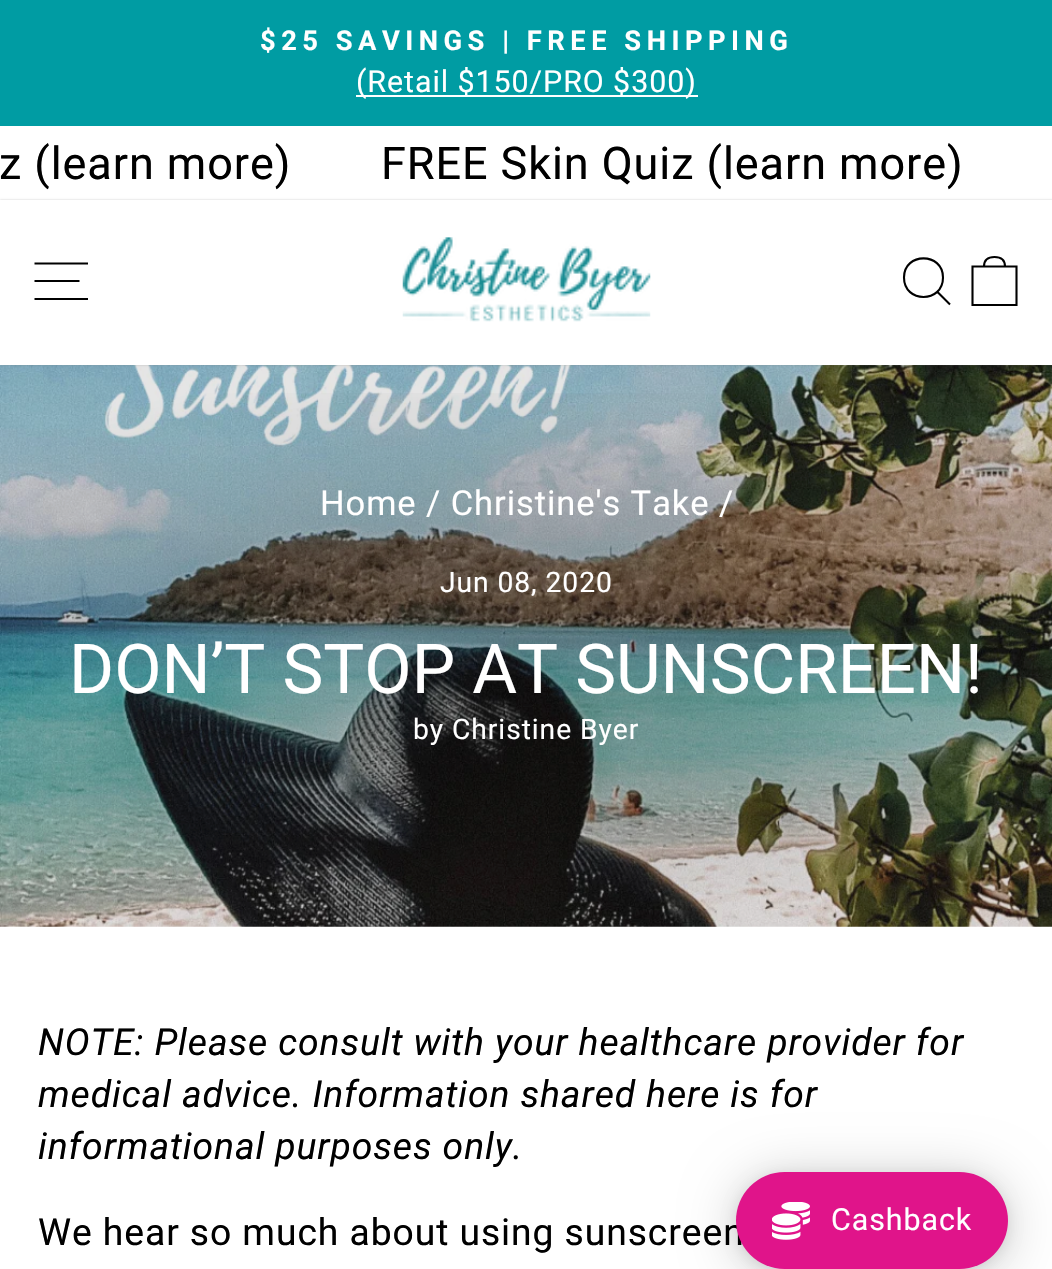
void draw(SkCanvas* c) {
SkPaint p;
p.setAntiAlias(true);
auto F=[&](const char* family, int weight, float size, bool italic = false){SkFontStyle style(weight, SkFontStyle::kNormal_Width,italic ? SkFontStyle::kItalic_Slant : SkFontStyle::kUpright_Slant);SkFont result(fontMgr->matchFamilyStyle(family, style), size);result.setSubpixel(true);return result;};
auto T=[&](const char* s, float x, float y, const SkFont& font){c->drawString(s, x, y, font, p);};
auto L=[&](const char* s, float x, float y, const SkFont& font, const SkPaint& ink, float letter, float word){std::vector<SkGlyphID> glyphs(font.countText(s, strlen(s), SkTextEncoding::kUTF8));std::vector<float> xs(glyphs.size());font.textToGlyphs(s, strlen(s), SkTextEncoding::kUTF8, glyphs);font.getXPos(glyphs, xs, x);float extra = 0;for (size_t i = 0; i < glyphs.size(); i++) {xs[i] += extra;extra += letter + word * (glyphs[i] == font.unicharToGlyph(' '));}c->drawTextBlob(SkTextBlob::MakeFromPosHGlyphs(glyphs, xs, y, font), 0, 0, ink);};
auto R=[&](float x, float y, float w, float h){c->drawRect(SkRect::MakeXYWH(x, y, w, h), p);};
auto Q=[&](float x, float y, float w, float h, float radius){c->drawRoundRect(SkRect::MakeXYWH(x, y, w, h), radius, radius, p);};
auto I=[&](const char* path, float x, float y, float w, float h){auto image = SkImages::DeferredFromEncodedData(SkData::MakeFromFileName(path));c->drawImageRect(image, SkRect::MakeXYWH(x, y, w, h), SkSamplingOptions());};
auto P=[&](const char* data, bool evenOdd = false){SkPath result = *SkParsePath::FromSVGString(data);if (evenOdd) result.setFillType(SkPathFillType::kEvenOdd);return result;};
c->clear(0xffffffff);
p.setColor(0xff009ca3);
R(0,0,1052,126);
auto f1 = F("Roboto",700,27.3);
p.setColor(0xffffffff);
L("$25 SAVINGS | FREE SHIPPING",260,50,f1,p,5.5,0);
R(356,95,342,2);
auto f2 = F("Roboto",400,30.4);
L("(Retail $150/PRO $300)",356,92,f2,p,.93,0);
auto f3 = F("Roboto",400,45);
p.setColor(0xff000000);
L("z (learn more)",-1,179,f3,p,.93,0);
L("FREE Skin Quiz (learn more)",381,179,f3,p,.93,0);
I("2.png",0,365,1052,562);
p.setColor(0x33000000);
p.setMaskFilter(SkMaskFilter::MakeBlur(kNormal_SkBlurStyle, 1));
c->drawRect(SkRect::MakeXYWH(0,200,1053,165),p);
p.setMaskFilter(nullptr);
p.setColor(0xffffffff);
R(0,200,1052,165);
p.setStroke(true);
p.setStrokeWidth(2.1);
p.setColor(0xff000000);
c->drawPath(P("M34.5 263.5h53.5m-53.5 17.5h45m-45 18h53.5"),p);
I("1.png",402,237,249,85);
c->drawPath(P("M943 277.5c0 26-39 26-39 0c0-25.5 39-25.5 39 0zm7 27l-12.5-12.5"),p);
c->drawPath(P("M972.5 266.5h44v38.5h-44zm11.5 0c0-7.5 5-9.5 10.5-9.5c5.5 0 10.5 2 10.5 9.5"),p);
p.setStroke(false);
{
const SkColor colors[] = {0x33000000,0x00000000};
const float stops[] = {0,.6};
SkMatrix m = SkMatrix::Translate(527,644).preScale(1282,468);
p.setShader(SkGradientShader::MakeRadial({0, 0}, 1, colors, stops, 2, SkTileMode::kClamp, 0, &m));
p.setAlpha(255);
}
R(0,393,1052,502);
auto f4 = F("Roboto",400,34.5);
p.setShader(nullptr);
p.setColor(0xffffffff);
L("Home / Christine's Take /",320,515,f4,p,.93,0);
auto f5 = F("Roboto",400,28.25);
L("Jun 08, 2020",440,592,f5,p,.93,0);
auto f6 = F("Roboto",400,68.8);
T("DON’T STOP AT SUNSCREEN!",69,693,f6);
L("by Christine Byer",413,739,f5,p,.93,0);
auto f7 = F("Roboto",400,37.25,true);
p.setColor(0xff000000);
L("NOTE: Please consult with your healthcare provider for",38,1055,f7,p,.93,0);
L("medical advice. Information shared here is for",38,1107,f7,p,.93,0);
L("informational purposes only.",38,1159,f7,p,.93,0);
auto f8 = F("Roboto",400,37.25);
L("We hear so much about using sunscreen",38,1245,f8,p,.93,0);
p.setColor(0x33000000);
p.setMaskFilter(SkMaskFilter::MakeBlur(kNormal_SkBlurStyle, 27));
c->drawRoundRect(SkRect::MakeXYWH(736,1177,272,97),48.5,48.5,p);
p.setMaskFilter(nullptr);
p.setColor(0x1a000000);
p.setMaskFilter(SkMaskFilter::MakeBlur(kNormal_SkBlurStyle, 7));
c->drawRoundRect(SkRect::MakeXYWH(736,1175,272,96),48,48,p);
p.setMaskFilter(nullptr);
p.setColor(0xffe0148a);
Q(736,1172,272,97,48.5);
I("3.png",772,1202,38,38);
p.setColor(0xffffffff);
L("Cashback",831,1230,f2,p,.93,0);
}
